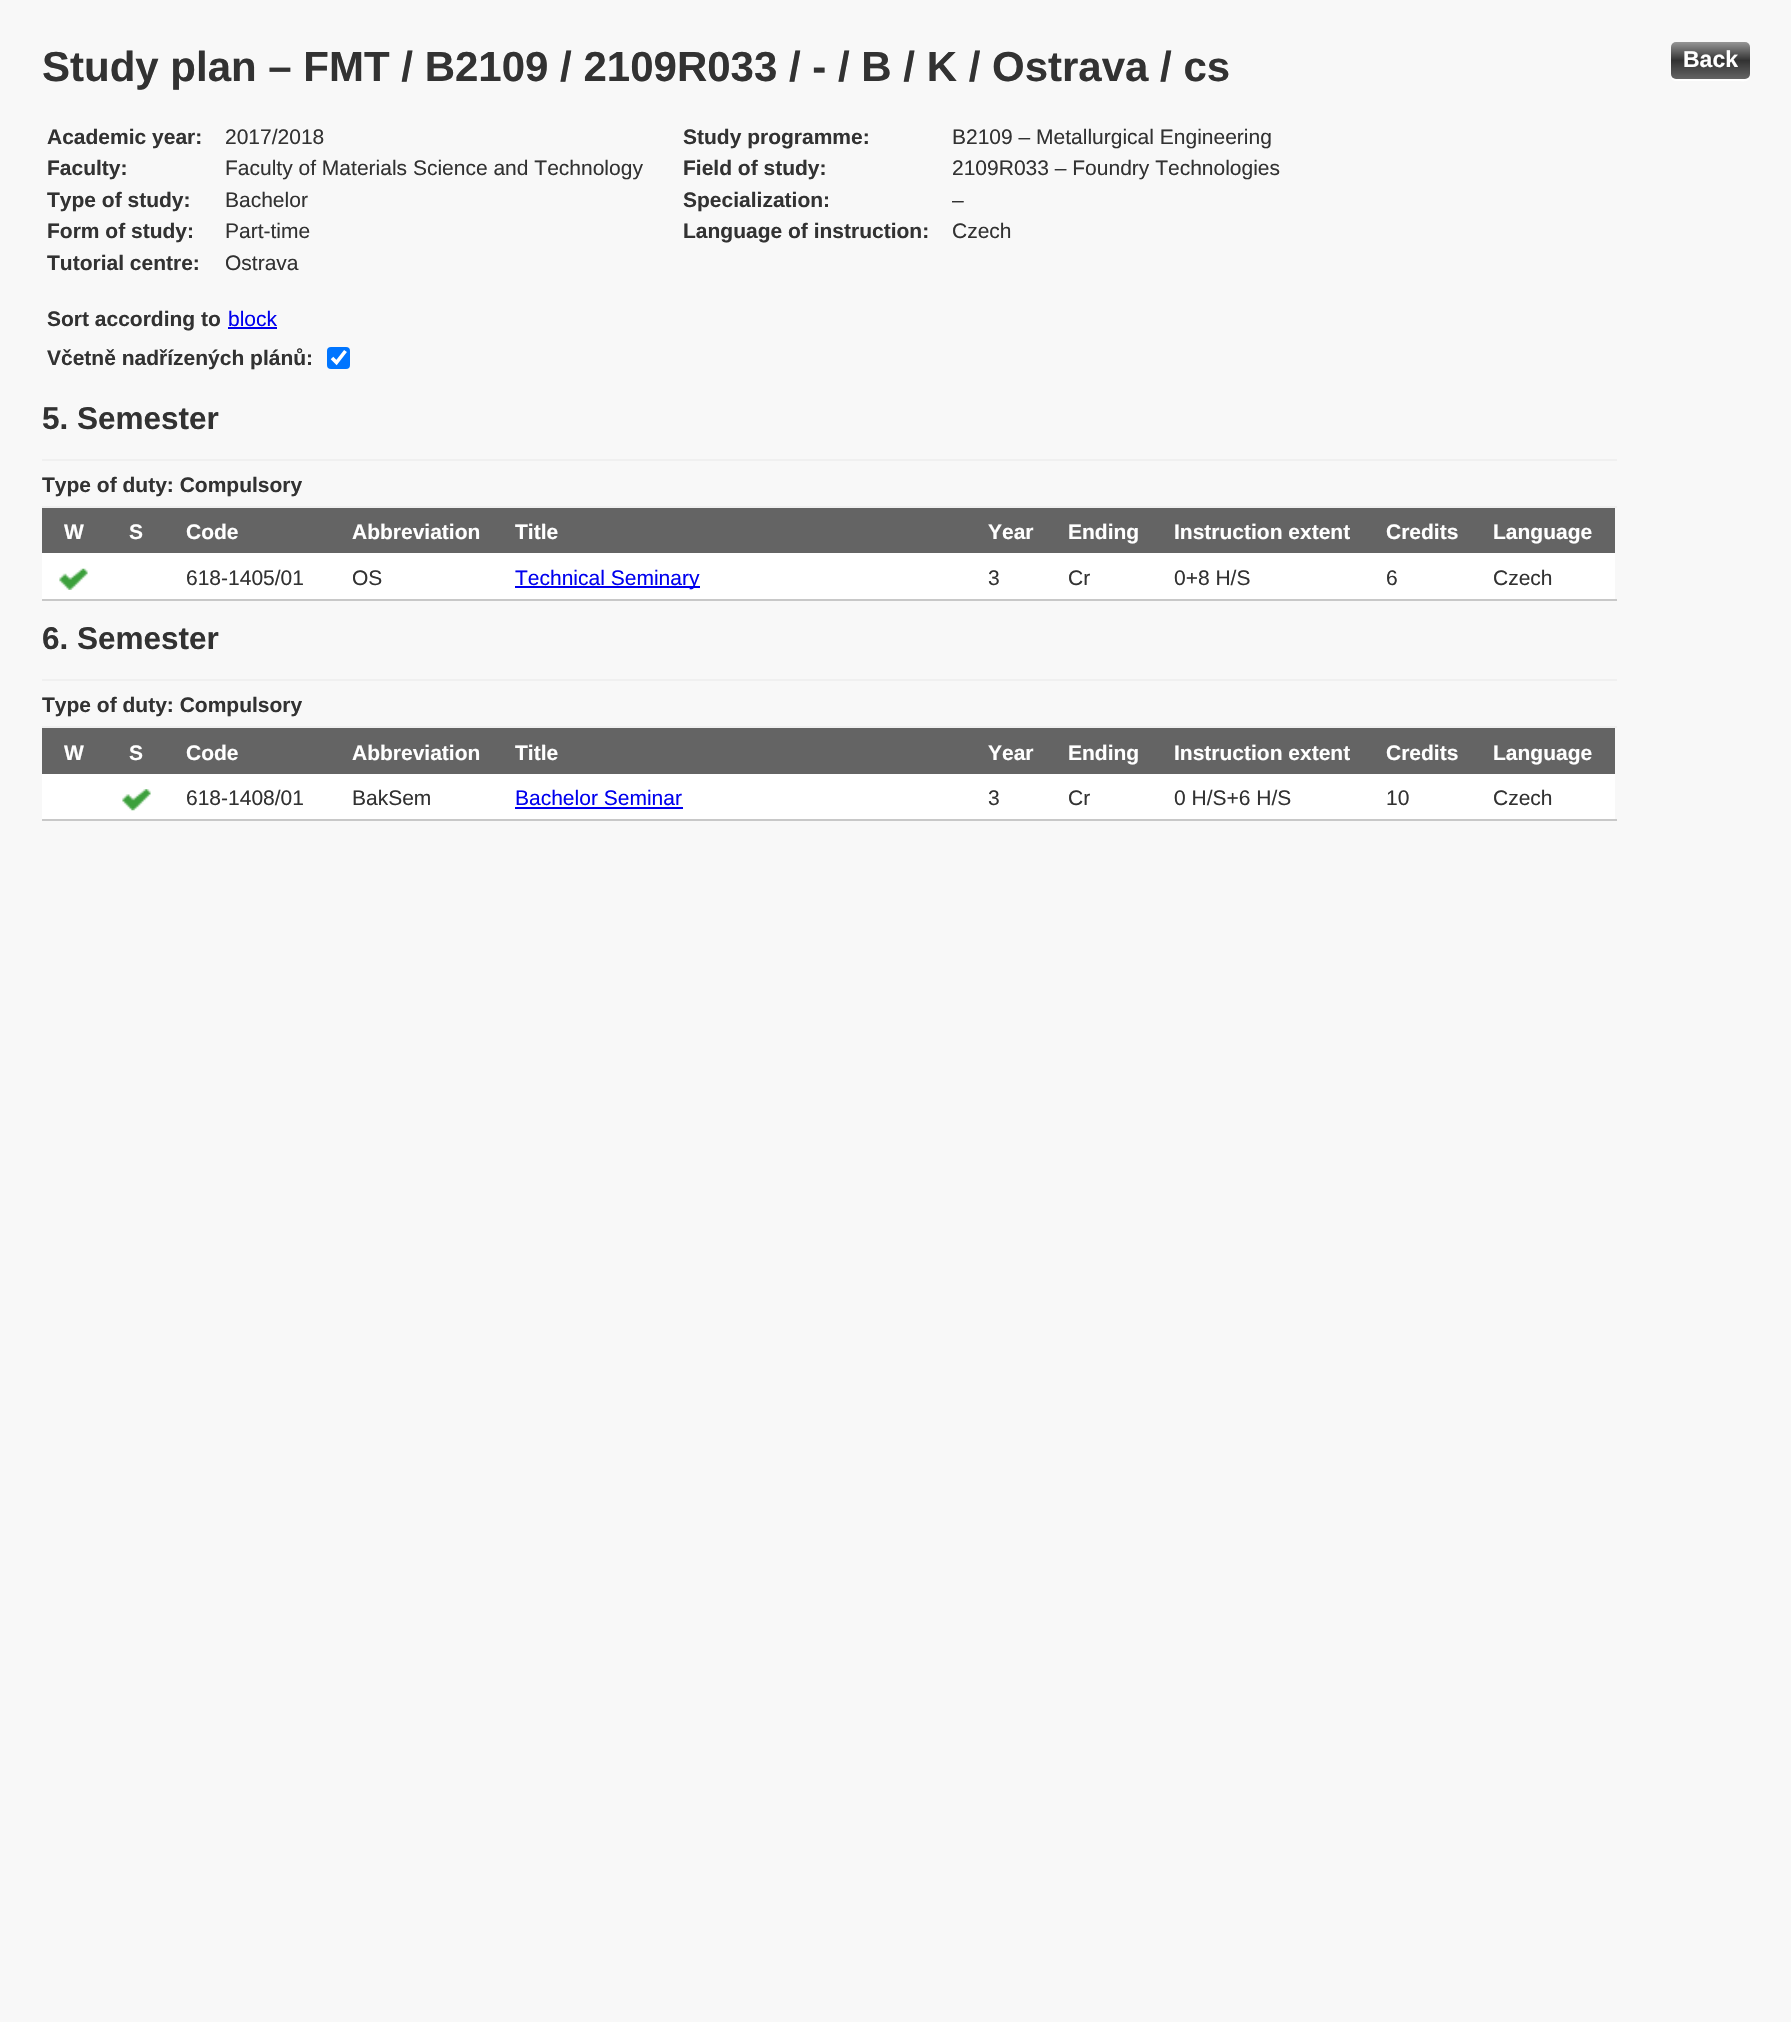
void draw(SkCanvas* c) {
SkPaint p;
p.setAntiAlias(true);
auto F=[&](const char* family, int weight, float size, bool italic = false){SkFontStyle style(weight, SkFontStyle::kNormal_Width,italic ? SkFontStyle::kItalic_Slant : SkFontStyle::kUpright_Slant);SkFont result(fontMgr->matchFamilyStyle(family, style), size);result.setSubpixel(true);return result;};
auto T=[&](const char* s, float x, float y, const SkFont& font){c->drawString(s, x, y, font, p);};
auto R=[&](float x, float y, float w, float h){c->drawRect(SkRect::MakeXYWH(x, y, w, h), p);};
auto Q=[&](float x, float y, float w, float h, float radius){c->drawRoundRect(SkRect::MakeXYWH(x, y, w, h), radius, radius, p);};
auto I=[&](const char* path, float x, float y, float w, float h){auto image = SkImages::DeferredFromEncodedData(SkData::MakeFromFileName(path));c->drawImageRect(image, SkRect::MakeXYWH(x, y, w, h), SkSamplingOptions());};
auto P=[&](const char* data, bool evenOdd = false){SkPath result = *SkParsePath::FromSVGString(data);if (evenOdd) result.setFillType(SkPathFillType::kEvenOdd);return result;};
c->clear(0xfff8f8f8);
auto f1 = F("Liberation Sans",700,42);
p.setColor(0xff323232);
T("Study plan – FMT / B2109 / 2109R033 / - / B / K / Ostrava / cs",42,81,f1);
auto f2 = F("Liberation Sans",700,21);
T("Academic year:",47,144,f2);
auto f3 = F("Liberation Sans",400,21);
T("2017/2018",225,144,f3);
T("Study programme:",683,144,f2);
T("B2109 – Metallurgical Engineering",952,144,f3);
T("Faculty:",47,175,f2);
T("Faculty of Materials Science and Technology",225,175,f3);
T("Field of study:",683,175,f2);
T("2109R033 – Foundry Technologies",952,175,f3);
T("Type of study:",47,207,f2);
T("Bachelor",225,207,f3);
T("Specialization:",683,207,f2);
T("–",952,207,f3);
T("Form of study:",47,238,f2);
T("Part-time",225,238,f3);
T("Language of instruction:",683,238,f2);
T("Czech",952,238,f3);
T("Tutorial centre:",47,270,f2);
T("Ostrava",225,270,f3);
T("Sort according to",47,326,f2);
p.setColor(0xff0000ee);
T("block",228,326,f3);
R(228,327,49,2);
p.setColor(0xff323232);
T("Včetně nadřízených plánů:",47,365,f2);
p.setColor(0xff0075ff);
Q(327,347,23,22,4);
p.setStroke(true);
p.setStrokeWidth(3.6);
p.setColor(0xffffffff);
c->drawPath(P("M332 358l4.5 4.5l9-11.5"),p);
auto f4 = F("Liberation Sans",700,31.5);
p.setStroke(false);
p.setColor(0xff323232);
T("5. Semester",42,429,f4);
p.setColor(0xfff0f0f0);
R(42,459,1575,2);
p.setColor(0xff323232);
T("Type of duty: Compulsory",42,492,f2);
p.setColor(0xfff0f0f0);
R(42,506,1575,2);
p.setColor(0xff646464);
R(42,508,1573,45);
p.setColor(0xffffffff);
T("W",64,539,f2);
T("S",129,539,f2);
T("Code",186,539,f2);
T("Abbreviation",352,539,f2);
T("Title",515,539,f2);
T("Year",988,539,f2);
T("Ending",1068,539,f2);
T("Instruction extent",1174,539,f2);
T("Credits",1386,539,f2);
T("Language",1493,539,f2);
R(42,553,1573,46);
I("1.png",59,568,29,22);
p.setColor(0xff323232);
T("618-1405/01",186,585,f3);
T("OS",352,585,f3);
p.setColor(0xff0000ee);
R(515,586,185,2);
T("Technical Seminary",515,585,f3);
p.setColor(0xff323232);
T("3",988,585,f3);
T("Cr",1068,585,f3);
T("0+8 H/S",1174,585,f3);
T("6",1386,585,f3);
p.setColor(0xffc8c8c8);
R(42,599,1575,2);
p.setColor(0xff323232);
T("Czech",1493,585,f3);
T("6. Semester",42,649,f4);
p.setColor(0xfff0f0f0);
R(42,679,1575,2);
p.setColor(0xff323232);
T("Type of duty: Compulsory",42,712,f2);
p.setColor(0xfff0f0f0);
R(42,726,1575,2);
p.setColor(0xff646464);
R(42,728,1573,46);
p.setColor(0xffffffff);
T("W",64,760,f2);
T("S",129,760,f2);
T("Code",186,760,f2);
T("Abbreviation",352,760,f2);
T("Title",515,760,f2);
T("Year",988,760,f2);
T("Ending",1068,760,f2);
T("Instruction extent",1174,760,f2);
T("Credits",1386,760,f2);
T("Language",1493,760,f2);
R(42,774,1573,45);
I("2.png",122,789,29,22);
p.setColor(0xff323232);
T("618-1408/01",186,805,f3);
T("BakSem",352,805,f3);
p.setColor(0xff0000ee);
T("Bachelor Seminar",515,805,f3);
R(515,807,168,2);
p.setColor(0xff323232);
T("3",988,805,f3);
T("Cr",1068,805,f3);
T("0 H/S+6 H/S",1174,805,f3);
T("10",1386,805,f3);
p.setColor(0xffc8c8c8);
R(42,819,1575,2);
p.setColor(0xff323232);
T("Czech",1493,805,f3);
p.setColor(0xffffffff);
c->drawPath(P("M1671 47v20c0 4-2 14 5 14h58c9 0 16 3 16-7c0 2-2 5-5 5h-69c-2 0-5-3-5-5z"),p);
{
const SkColor colors[] = {0xff969696,0xff323232,0xff646464};
const float stops[] = {0,.5,1};
const SkPoint ends[] = {{1711,42}, {1711,79}};
p.setShader(SkGradientShader::MakeLinear(ends, colors, stops, 3, SkTileMode::kClamp));
p.setAlpha(255);
}
Q(1671,42,79,37,5);
auto f5 = F("Liberation Sans",700,23);
p.setShader(nullptr);
p.setColor(0xffffffff);
T("Back",1683,67,f5);
}
